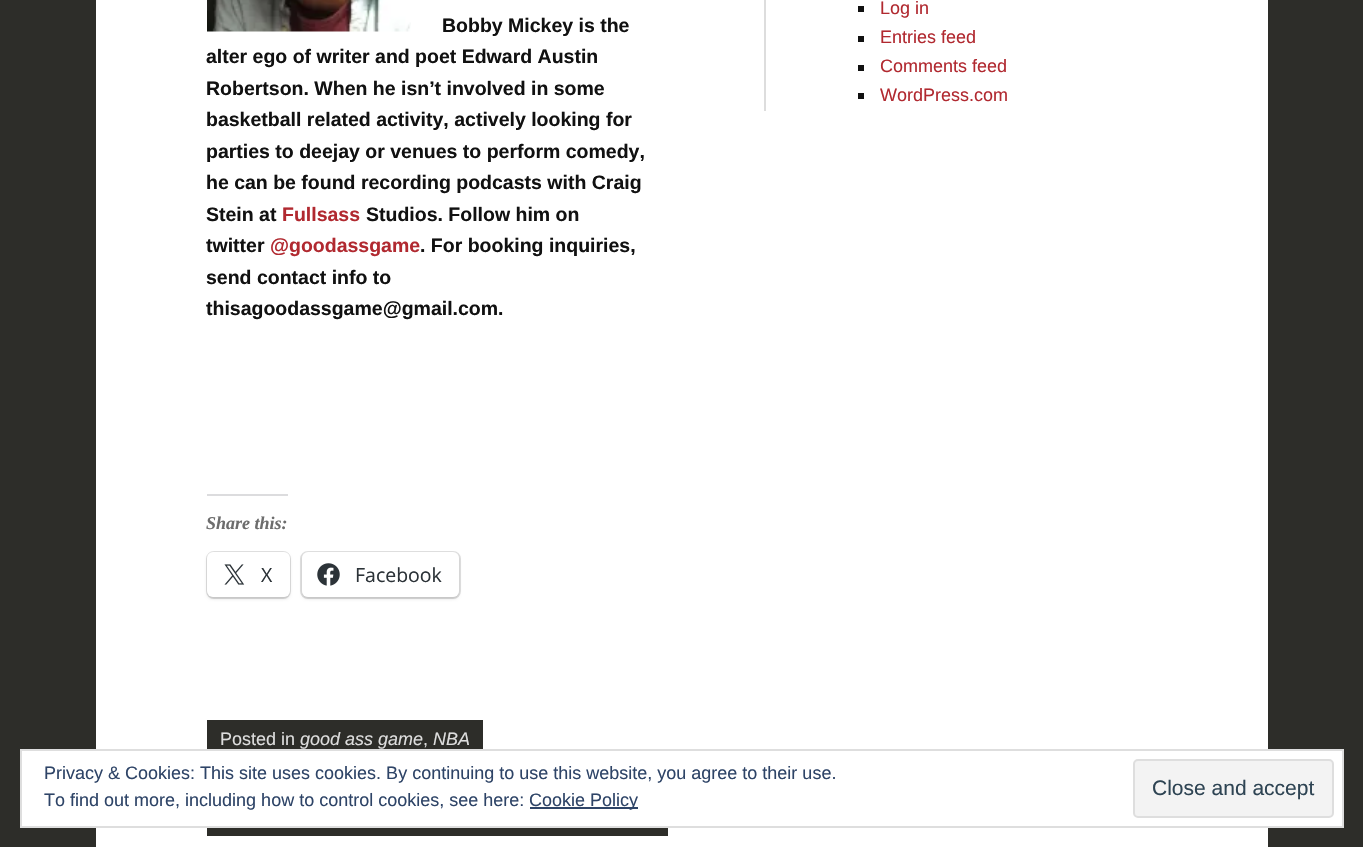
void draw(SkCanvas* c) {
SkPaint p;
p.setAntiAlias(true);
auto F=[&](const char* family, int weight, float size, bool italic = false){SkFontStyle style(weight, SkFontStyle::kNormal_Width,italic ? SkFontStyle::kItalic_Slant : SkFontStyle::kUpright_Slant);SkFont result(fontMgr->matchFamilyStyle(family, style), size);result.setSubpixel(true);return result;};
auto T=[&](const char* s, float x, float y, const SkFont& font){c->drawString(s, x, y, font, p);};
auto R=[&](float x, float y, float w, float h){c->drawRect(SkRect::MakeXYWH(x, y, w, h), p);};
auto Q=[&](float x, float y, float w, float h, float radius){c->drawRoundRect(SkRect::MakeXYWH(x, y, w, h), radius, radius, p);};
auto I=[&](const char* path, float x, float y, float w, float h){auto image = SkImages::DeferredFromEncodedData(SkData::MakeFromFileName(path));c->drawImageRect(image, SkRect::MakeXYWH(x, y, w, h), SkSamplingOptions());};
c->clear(0xff2d2d29);
p.setColor(0xffffffff);
R(96,0,1172,847);
I("1.png",207,0,204,32);
auto f1 = F("Liberation Sans",700,19.5);
p.setColor(0xff111111);
T("Bobby Mickey is the",442,32,f1);
T("alter ego of writer and poet Edward Austin",206,63,f1);
T("Robertson. When he isn’t involved in some",206,95,f1);
T("basketball related activity, actively looking for",206,126,f1);
T("parties to deejay or venues to perform comedy,",206,158,f1);
T("he can be found recording podcasts with Craig",206,189,f1);
T("Stein at",206,221,f1);
p.setColor(0xffb12930);
T("Fullsass",282,221,f1);
p.setColor(0xff111111);
T("Studios. Follow him on",366,221,f1);
T("twitter",206,252,f1);
p.setColor(0xffb12930);
T("@goodassgame",270,252,f1);
p.setColor(0xff111111);
T(". For booking inquiries,",420,252,f1);
T("send contact info to",206,284,f1);
T("thisagoodassgame@gmail.com.",206,315,f1);
p.setColor(0xffdcdcde);
R(207,494,81,2);
auto f2 = F("Liberation Serif",700,18,true);
p.setColor(0xff6d6d6d);
T("Share this:",206,529,f2);
p.setStroke(true);
p.setStrokeWidth(2);
p.setColor(0xffe0e0e0);
c->drawRoundRect(SkRect::MakeXYWH(207,552,83,46),7,7,p);
p.setStroke(false);
p.setColor(0x1f000000);
p.setMaskFilter(SkMaskFilter::MakeBlur(kNormal_SkBlurStyle, 1.5));
c->drawRoundRect(SkRect::MakeXYWH(207,554,83,45),6,6,p);
p.setMaskFilter(nullptr);
p.setColor(0xffffffff);
Q(207,552,83,45,6);
I("2.png",224,564,21,21);
auto f3 = F("Open Sans",400,19.5);
p.setColor(0xff2c3338);
T("X",261,582,f3);
p.setStroke(true);
p.setColor(0xffe0e0e0);
c->drawRoundRect(SkRect::MakeXYWH(301,552,159,46),7,7,p);
p.setStroke(false);
p.setColor(0x1f000000);
p.setMaskFilter(SkMaskFilter::MakeBlur(kNormal_SkBlurStyle, 1.5));
c->drawRoundRect(SkRect::MakeXYWH(302,554,157,45),6,6,p);
p.setMaskFilter(nullptr);
p.setColor(0xffffffff);
Q(302,552,157,45,6);
I("3.png",317,563,23,23);
p.setColor(0xff2c3338);
T("Facebook",355,582,f3);
p.setColor(0xff2d2d29);
R(207,720,276,29);
auto f4 = F("Liberation Sans",400,18);
p.setColor(0xffdddddd);
T("Posted in",220,745,f4);
auto f5 = F("Liberation Sans",400,18,true);
T("good ass game",300,745,f5);
T("NBA",433,745,f5);
T(",",423,745,f4);
p.setColor(0xff2d2d29);
R(207,828,461,8);
p.setColor(0xffdddddd);
R(764,0,2,111);
p.setColor(0xff111111);
R(858,6,6,6);
p.setColor(0xffb12930);
T("Log in",880,14,f4);
p.setColor(0xff111111);
R(858,36,6,6);
p.setColor(0xffb12930);
T("Entries feed",880,43,f4);
p.setColor(0xff111111);
R(858,65,6,6);
p.setColor(0xffb12930);
T("Comments feed",880,72,f4);
p.setColor(0xff111111);
R(858,93,6,6);
p.setColor(0xffb12930);
T("WordPress.com",880,101,f4);
p.setColor(0xffffffff);
c->drawRect(SkRect::MakeXYWH(21,750,1322,77),p);
p.setStroke(true);
p.setColor(0xffdedede);
c->drawRect(SkRect::MakeXYWH(21,750,1322,77),p);
p.setStroke(false);
p.setColor(0xff2e4467);
T("Privacy & Cookies: This site uses cookies. By continuing to use this website, you agree to their use.",44,779,f4);
T("To find out more, including how to control cookies, see here:",44,806,f4);
R(530,807,108,2);
T("Cookie Policy",529,806,f4);
p.setColor(0xfff3f3f3);
c->drawRoundRect(SkRect::MakeXYWH(1134,760,199,57),4,4,p);
p.setStroke(true);
p.setColor(0xffdedede);
c->drawRoundRect(SkRect::MakeXYWH(1134,760,199,57),4,4,p);
auto f6 = F("Liberation Sans",400,21);
p.setStroke(false);
p.setColor(0xff2e4453);
T("Close and accept",1152,795,f6);
}
